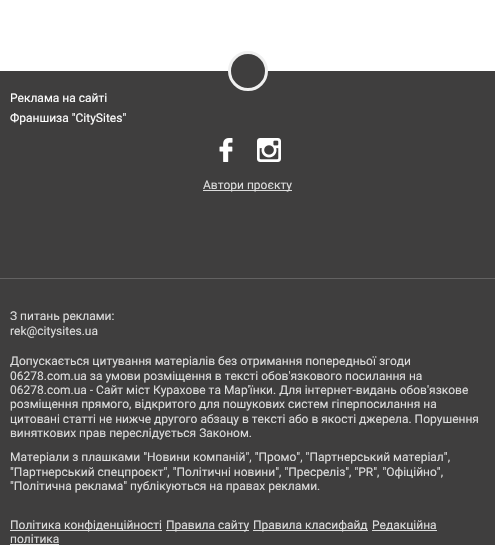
void draw(SkCanvas* c) {
SkPaint p;
p.setAntiAlias(true);
auto F=[&](const char* family, int weight, float size, bool italic = false){SkFontStyle style(weight, SkFontStyle::kNormal_Width,italic ? SkFontStyle::kItalic_Slant : SkFontStyle::kUpright_Slant);SkFont result(fontMgr->matchFamilyStyle(family, style), size);result.setSubpixel(true);return result;};
auto T=[&](const char* s, float x, float y, const SkFont& font){c->drawString(s, x, y, font, p);};
auto R=[&](float x, float y, float w, float h){c->drawRect(SkRect::MakeXYWH(x, y, w, h), p);};
auto I=[&](const char* path, float x, float y, float w, float h){auto image = SkImages::DeferredFromEncodedData(SkData::MakeFromFileName(path));c->drawImageRect(image, SkRect::MakeXYWH(x, y, w, h), SkSamplingOptions());};
c->clear(0xffffffff);
p.setColor(0xff3f3e3e);
R(0,71,495,474);
c->drawCircle(248,71,18.5,p);
p.setStroke(true);
p.setStrokeWidth(3);
p.setColor(0xfff0f0f0);
c->drawCircle(248,71,18.5,p);
auto f1 = F("Roboto",400,12);
p.setStroke(false);
p.setColor(0xffffffff);
T("Реклама на сайті",10,102,f1);
T("Франшиза \"CitySites\"",10,122,f1);
I("1.png",219,138,14,24);
I("2.png",257,138,24,24);
p.setColor(0xffdcdcdc);
R(203,190,89,1);
T("Автори проєкту",203,189,f1);
p.setColor(0xff636262);
R(0,278,495,1);
p.setColor(0xffdcdcdc);
T("З питань реклами:",10,320,f1);
T("rek@citysites.ua",10,335,f1);
T("Допускається цитування матеріалів без отримання попередньої згоди",10,365,f1);
T("06278.com.ua за умови розміщення в тексті обов'язкового посилання на",10,380,f1);
T("06278.com.ua - Сайт міст Курахове та Мар'їнки. Для інтернет-видань обов'язкове",10,394,f1);
T("розміщення прямого, відкритого для пошукових систем гіперпосилання на",10,408,f1);
T("цитовані статті не нижче другого абзацу в тексті або в якості джерела. Порушення",10,423,f1);
T("виняткових прав переслідується Законом.",10,437,f1);
T("Матеріали з плашками \"Новини компаній\", \"Промо\", \"Партнерський матеріал\",",10,461,f1);
T("\"Партнерський спецпроєкт\", \"Політичні новини\", \"Пресреліз\", \"PR\", \"Офіційно\",",10,476,f1);
T("\"Політична реклама\" публікуються на правах реклами.",10,490,f1);
R(10,530,152,1);
T("Політика конфіденційності",10,529,f1);
R(166,530,83,1);
T("Правила сайту",166,529,f1);
R(253,530,115,1);
T("Правила класифайд",253,529,f1);
R(372,530,65,1);
T("Редакційна",372,529,f1);
T("політика",10,543,f1);
R(10,544,49,1);
}
